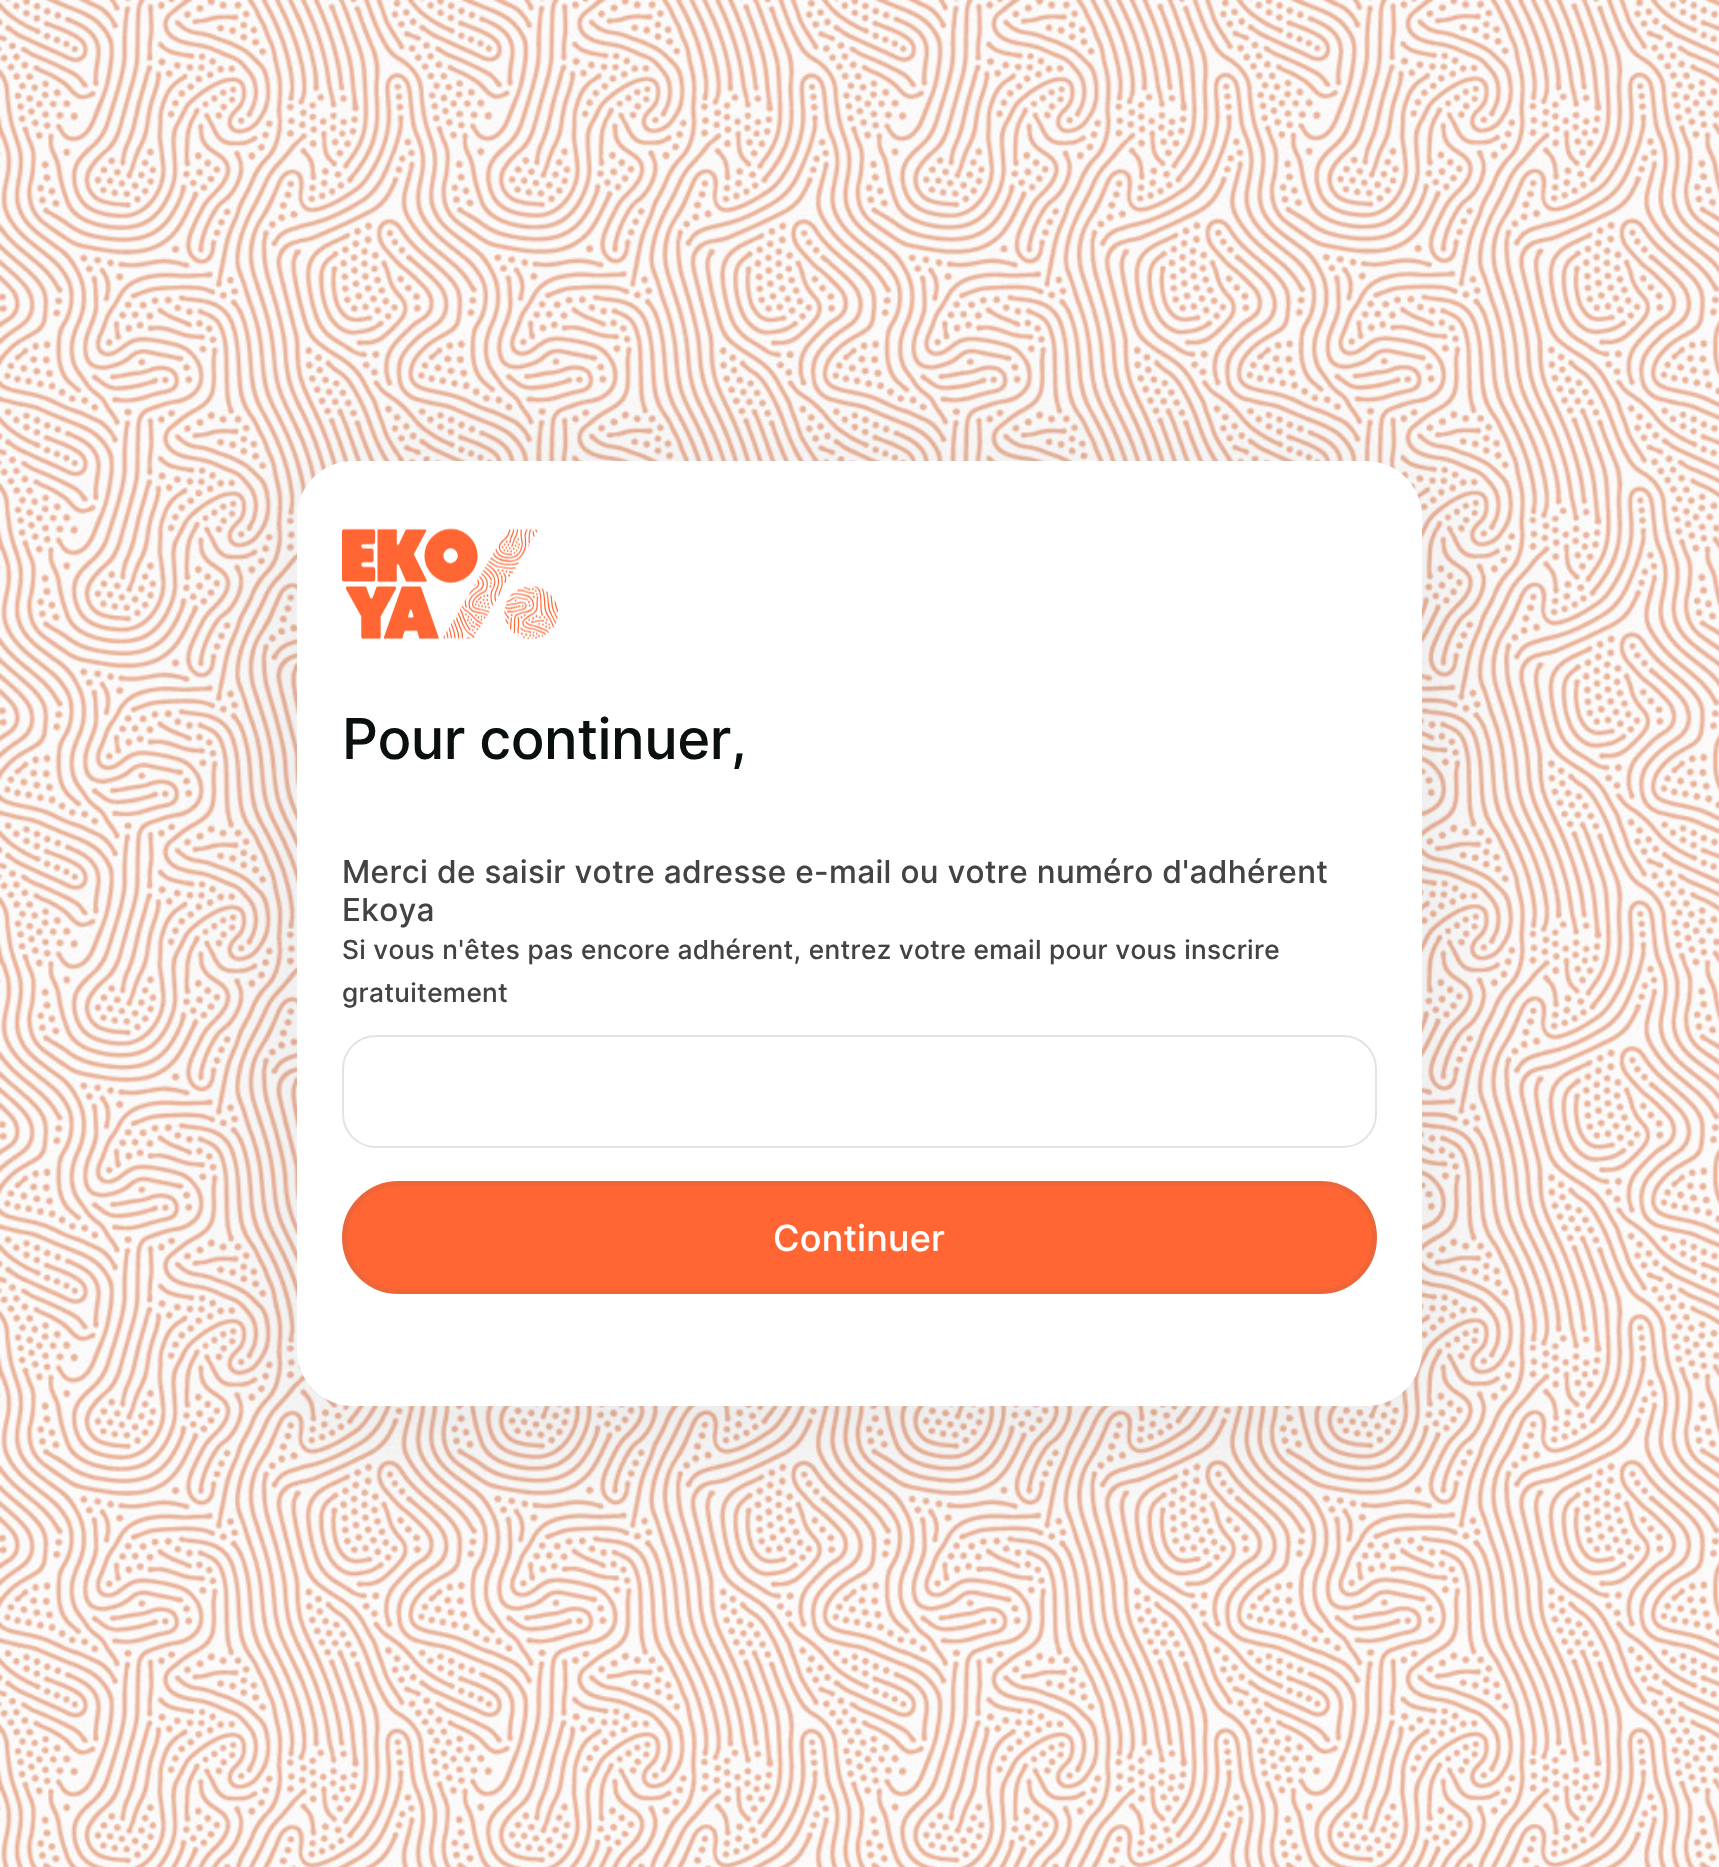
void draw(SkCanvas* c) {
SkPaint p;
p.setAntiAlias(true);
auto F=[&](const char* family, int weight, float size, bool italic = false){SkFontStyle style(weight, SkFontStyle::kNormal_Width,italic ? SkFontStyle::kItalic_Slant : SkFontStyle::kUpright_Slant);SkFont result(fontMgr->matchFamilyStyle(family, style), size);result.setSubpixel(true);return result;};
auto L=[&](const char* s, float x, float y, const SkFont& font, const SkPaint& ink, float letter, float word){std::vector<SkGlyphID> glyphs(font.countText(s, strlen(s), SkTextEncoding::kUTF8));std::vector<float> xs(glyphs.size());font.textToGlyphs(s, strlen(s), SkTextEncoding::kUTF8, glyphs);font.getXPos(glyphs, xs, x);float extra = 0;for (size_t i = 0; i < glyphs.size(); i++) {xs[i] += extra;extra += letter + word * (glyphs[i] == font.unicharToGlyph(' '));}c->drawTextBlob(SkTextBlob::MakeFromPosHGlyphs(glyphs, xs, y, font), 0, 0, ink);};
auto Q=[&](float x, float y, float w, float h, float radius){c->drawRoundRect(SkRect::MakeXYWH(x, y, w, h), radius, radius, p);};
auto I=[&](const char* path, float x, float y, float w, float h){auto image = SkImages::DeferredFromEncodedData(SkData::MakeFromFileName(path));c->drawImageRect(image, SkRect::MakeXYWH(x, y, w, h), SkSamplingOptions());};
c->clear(0xffffffff);
I("1.png",0,0,1719,1867);
p.setColor(0x14000000);
p.setMaskFilter(SkMaskFilter::MakeBlur(kNormal_SkBlurStyle, 56));
c->drawRoundRect(SkRect::MakeXYWH(297,484,1125,945),56,56,p);
p.setMaskFilter(nullptr);
p.setColor(0xffffffff);
Q(297,461,1125,945,56);
I("2.png",342,528,216,112);
auto f1 = F("Inter",500,56.25);
p.setColor(0xff0a100d);
L("Pour continuer,",342,759,f1,p,-.5,0);
auto f2 = F("Inter",500,31.5);
p.setColor(0xff434343);
L("Merci de saisir votre adresse e-mail ou votre numéro d'adhérent",342,883,f2,p,.32,0);
L("Ekoya",342,921,f2,p,.32,0);
auto f3 = F("Inter",500,26.25);
L("Si vous n'êtes pas encore adhérent, entrez votre email pour vous inscrire",342,959,f3,p,.32,0);
L("gratuitement",342,1002,f3,p,.32,0);
p.setStroke(true);
p.setStrokeWidth(2);
p.setColor(0xffe3e3e3);
c->drawRoundRect(SkRect::MakeXYWH(343,1036,1033,111),33,33,p);
p.setStroke(false);
p.setColor(0xffff6633);
c->drawRoundRect(SkRect::MakeXYWH(344.5,1183.5,1030,108),54,54,p);
p.setStroke(true);
p.setStrokeWidth(5);
p.setColor(0xffec663a);
c->drawRoundRect(SkRect::MakeXYWH(344.5,1183.5,1030,108),54,54,p);
auto f4 = F("Inter",500,36);
p.setStroke(false);
p.setColor(0xffffffff);
L("Continuer",773,1251,f4,p,.25,0);
}
